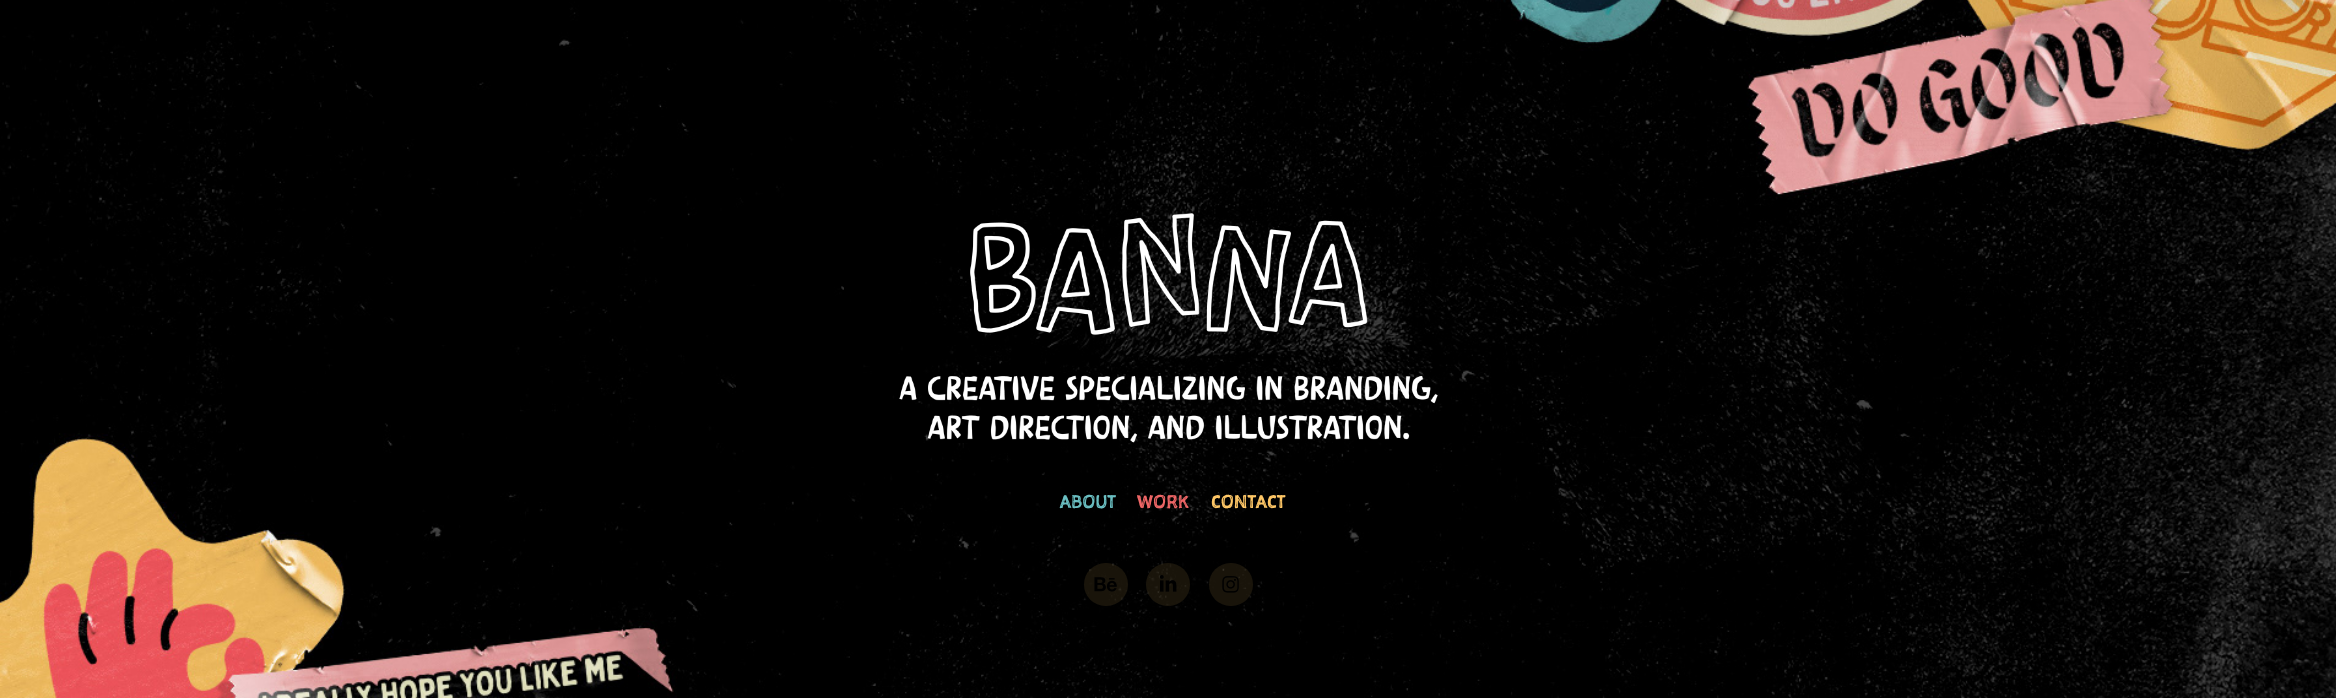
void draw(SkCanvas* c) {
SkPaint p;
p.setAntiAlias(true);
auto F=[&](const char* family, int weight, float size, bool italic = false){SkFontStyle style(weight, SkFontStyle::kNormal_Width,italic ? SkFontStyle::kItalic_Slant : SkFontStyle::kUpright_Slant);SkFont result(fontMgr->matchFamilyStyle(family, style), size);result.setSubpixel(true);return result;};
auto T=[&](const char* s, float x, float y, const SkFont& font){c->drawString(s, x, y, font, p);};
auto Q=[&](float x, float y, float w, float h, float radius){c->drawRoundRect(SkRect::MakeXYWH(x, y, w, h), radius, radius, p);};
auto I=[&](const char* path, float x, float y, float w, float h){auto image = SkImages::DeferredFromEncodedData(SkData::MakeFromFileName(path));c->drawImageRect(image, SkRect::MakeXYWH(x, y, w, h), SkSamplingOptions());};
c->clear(0xffffffff);
I("1.png",0,0,2336,698);
I("2.png",899,213,539,230);
auto f1 = F("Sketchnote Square",400,17.5);
p.setColor(0xff6abfc2);
T("ABOUT",1060,508,f1);
p.setColor(0xffef6666);
T("WORK",1137,508,f1);
p.setColor(0xffffc766);
T("CONTACT",1211,508,f1);
p.setColor(0x1afac362);
Q(1084,563,44,43,21.5);
I("3.png",1094,577,23,15);
Q(1146,563,44,43,21.5);
I("4.png",1159,575,18,17);
Q(1209,563,44,43,21.5);
I("5.png",1222,576,17,17);
}
